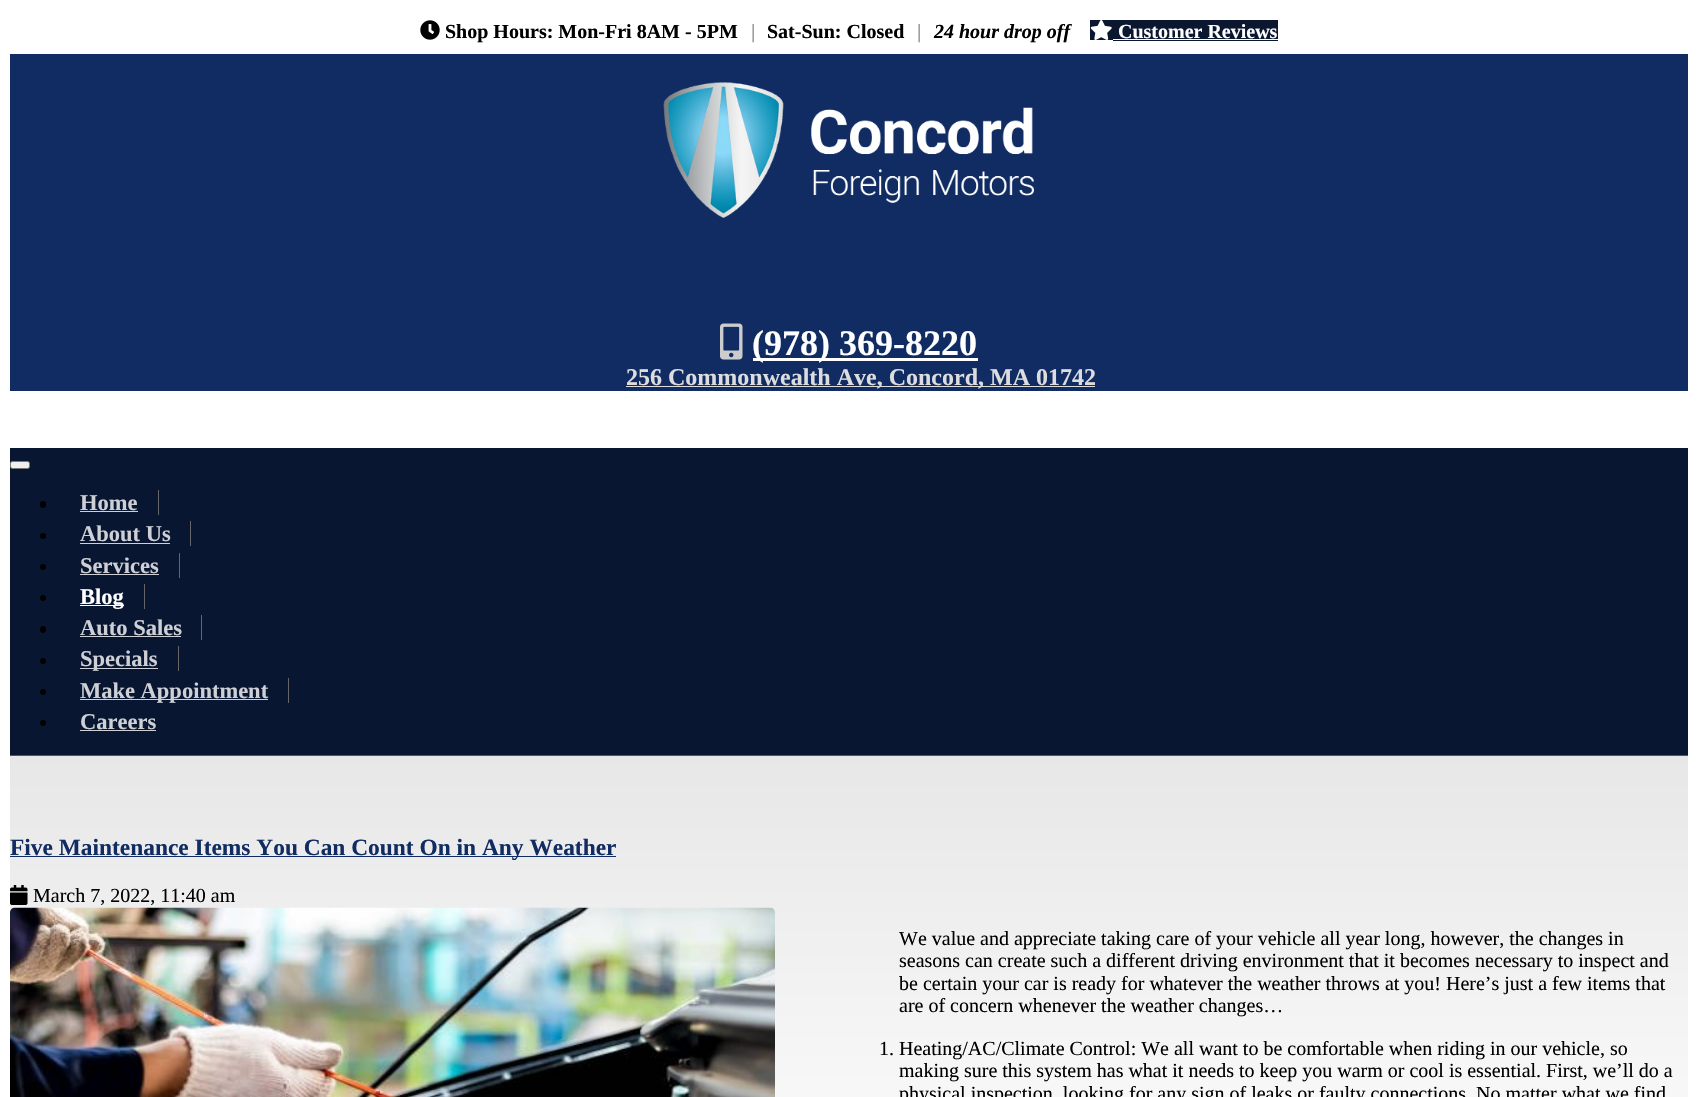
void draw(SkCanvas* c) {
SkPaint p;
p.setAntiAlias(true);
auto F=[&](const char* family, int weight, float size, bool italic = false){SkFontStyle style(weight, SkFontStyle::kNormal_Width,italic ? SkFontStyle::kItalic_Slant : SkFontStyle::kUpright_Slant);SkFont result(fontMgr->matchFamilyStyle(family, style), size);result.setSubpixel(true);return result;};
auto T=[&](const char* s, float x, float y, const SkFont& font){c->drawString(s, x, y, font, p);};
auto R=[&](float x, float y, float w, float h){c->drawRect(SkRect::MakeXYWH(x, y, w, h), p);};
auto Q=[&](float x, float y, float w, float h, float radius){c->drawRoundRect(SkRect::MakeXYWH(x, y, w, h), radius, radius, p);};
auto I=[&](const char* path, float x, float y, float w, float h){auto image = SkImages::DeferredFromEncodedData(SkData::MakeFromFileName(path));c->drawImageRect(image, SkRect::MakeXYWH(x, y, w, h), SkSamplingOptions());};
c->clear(0xffffffff);
I("1.png",420,20,20,20);
auto f1 = F("Liberation Serif",700,20);
p.setColor(0xff000000);
T("Shop Hours: Mon-Fri 8AM - 5PM",445,38,f1);
p.setColor(0xff999999);
T("|",751,38,f1);
p.setColor(0xff000000);
T("Sat-Sun: Closed",767,38,f1);
p.setColor(0xff999999);
T("|",917,38,f1);
auto f2 = F("Liberation Serif",700,20,true);
p.setColor(0xff000000);
T("24 hour drop off",934,38,f2);
p.setColor(0xff0b162f);
R(1090,20,23,20);
R(1113,20,165,21);
I("2.png",1090,20,22,20);
p.setColor(0xffffffff);
T("Customer Reviews",1118,38,f1);
R(1113,39,165,1);
p.setColor(0xff102c63);
R(10,54,1678,337);
I("3.png",663,82,371,136);
I("4.png",720,323,23,37);
p.setColor(0xffffffff);
R(753,358,225,3);
auto f3 = F("Liberation Serif",700,36);
T("(978) 369-8220",752,355,f3);
p.setColor(0xffdddddd);
R(626,386,469,1);
auto f4 = F("Liberation Serif",700,24);
T("256 Commonwealth Ave, Concord, MA 01742",626,385,f4);
p.setColor(0xff081631);
R(10,448,1678,307);
p.setColor(0xff555555);
R(10,755,1678,1);
p.setColor(0xffefefef);
c->drawRoundRect(SkRect::MakeXYWH(10.5,461.5,19,7),2,2,p);
p.setStroke(true);
p.setStrokeWidth(1);
p.setColor(0xff767676);
c->drawRoundRect(SkRect::MakeXYWH(10.5,461.5,19,7),2,2,p);
p.setStroke(false);
p.setColor(0xff000000);
Q(40,501,6,7,3);
auto f5 = F("Liberation Serif",700,22.5);
p.setColor(0xffced0d6);
T("Home",80,510,f5);
p.setColor(0xff666666);
R(158,490,1,25);
p.setColor(0xffced0d6);
R(80,511,58,1);
p.setColor(0xff000000);
c->drawCircle(43,536,3,p);
p.setColor(0xffced0d6);
T("About Us",80,541,f5);
p.setColor(0xff666666);
R(190,521,1,25);
p.setColor(0xffced0d6);
R(80,543,90,1);
p.setColor(0xff000000);
c->drawCircle(43,567,3,p);
p.setColor(0xffced0d6);
T("Services",80,573,f5);
p.setColor(0xff666666);
R(179,553,1,25);
p.setColor(0xffced0d6);
R(80,574,79,1);
p.setColor(0xff000000);
c->drawCircle(43,598,3,p);
p.setColor(0xffffffff);
R(80,605,44,1);
T("Blog",80,604,f5);
p.setColor(0xff666666);
R(144,584,1,25);
p.setColor(0xff000000);
Q(40,626,6,7,3);
p.setColor(0xffced0d6);
T("Auto Sales",80,635,f5);
p.setColor(0xff666666);
R(201,615,1,25);
p.setColor(0xffced0d6);
R(80,636,101,1);
p.setColor(0xff000000);
c->drawCircle(43,661,3,p);
p.setColor(0xffced0d6);
R(80,668,78,1);
T("Specials",80,666,f5);
p.setColor(0xff666666);
R(178,646,1,25);
p.setColor(0xff000000);
c->drawCircle(43,692,3,p);
p.setColor(0xffced0d6);
R(80,699,188,1);
T("Make Appointment",80,698,f5);
p.setColor(0xff666666);
R(288,678,1,25);
p.setColor(0xff000000);
c->drawCircle(43,723,3,p);
p.setColor(0xffced0d6);
T("Careers",80,729,f5);
R(80,730,76,1);
{
const SkColor colors[] = {0xffe7e7e7,0xffffffff};
const float stops[] = {0,.33};
const SkPoint ends[] = {{849,756}, {849,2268}};
p.setShader(SkGradientShader::MakeLinear(ends, colors, stops, 2, SkTileMode::kClamp));
p.setAlpha(255);
}
R(10,756,1678,341);
p.setShader(nullptr);
p.setColor(0xff102c63);
R(10,856,606,1);
auto f6 = F("Liberation Serif",700,23.4);
T("Five Maintenance Items You Can Count On in Any Weather",10,855,f6);
I("5.png",10,885,18,20);
auto f7 = F("Liberation Serif",400,20);
p.setColor(0xff000000);
T("March 7, 2022, 11:40 am",33,902,f7);
I("6.png",10,907,765,190);
T("We value and appreciate taking care of your vehicle all year long, however, the changes in",899,945,f7);
T("seasons can create such a different driving environment that it becomes necessary to inspect and",899,967,f7);
T("be certain your car is ready for whatever the weather throws at you! Here’s just a few items that",899,990,f7);
T("are of concern whenever the weather changes…",899,1012,f7);
T("1. Heating/AC/Climate Control: We all want to be comfortable when riding in our vehicle, so",879,1055,f7);
T("making sure this system has what it needs to keep you warm or cool is essential. First, we’ll do a",899,1077,f7);
T("physical inspection, looking for any sign of leaks or faulty connections. No matter what we find",899,1100,f7);
}
